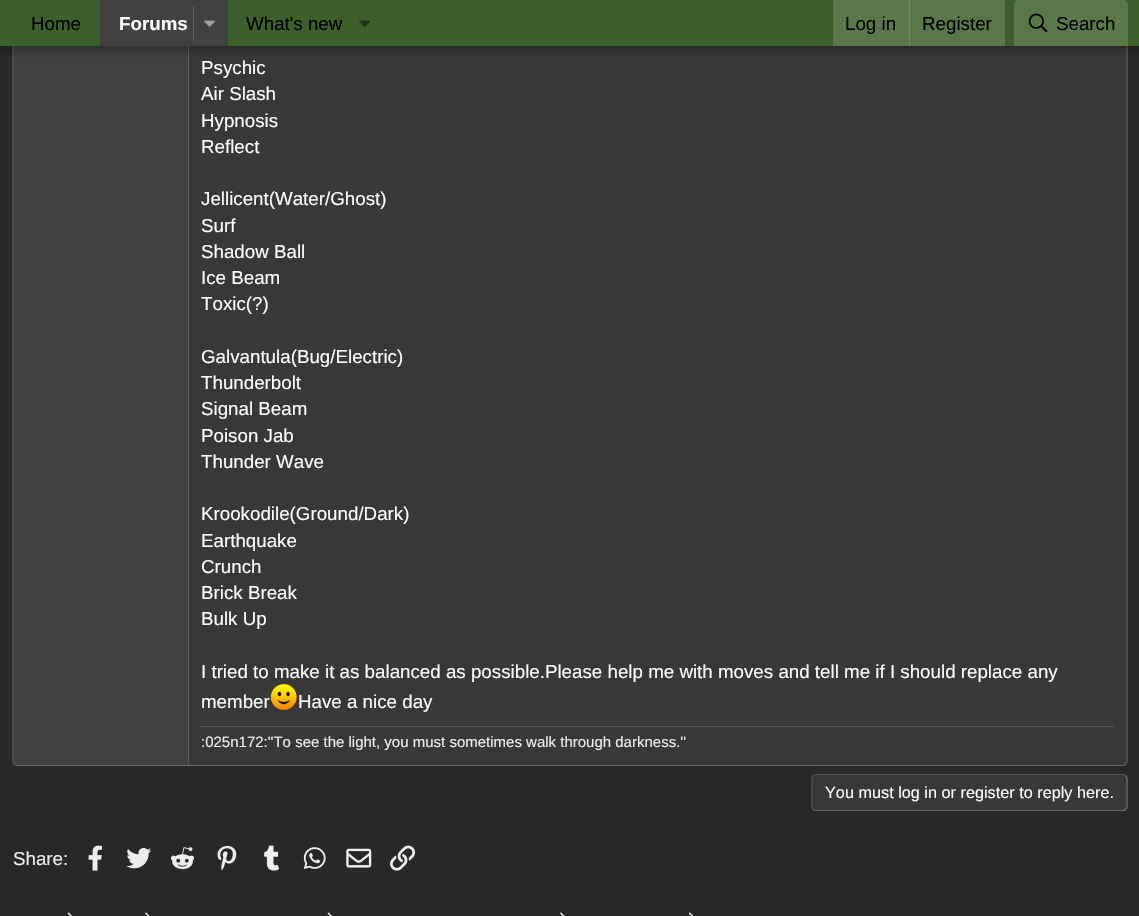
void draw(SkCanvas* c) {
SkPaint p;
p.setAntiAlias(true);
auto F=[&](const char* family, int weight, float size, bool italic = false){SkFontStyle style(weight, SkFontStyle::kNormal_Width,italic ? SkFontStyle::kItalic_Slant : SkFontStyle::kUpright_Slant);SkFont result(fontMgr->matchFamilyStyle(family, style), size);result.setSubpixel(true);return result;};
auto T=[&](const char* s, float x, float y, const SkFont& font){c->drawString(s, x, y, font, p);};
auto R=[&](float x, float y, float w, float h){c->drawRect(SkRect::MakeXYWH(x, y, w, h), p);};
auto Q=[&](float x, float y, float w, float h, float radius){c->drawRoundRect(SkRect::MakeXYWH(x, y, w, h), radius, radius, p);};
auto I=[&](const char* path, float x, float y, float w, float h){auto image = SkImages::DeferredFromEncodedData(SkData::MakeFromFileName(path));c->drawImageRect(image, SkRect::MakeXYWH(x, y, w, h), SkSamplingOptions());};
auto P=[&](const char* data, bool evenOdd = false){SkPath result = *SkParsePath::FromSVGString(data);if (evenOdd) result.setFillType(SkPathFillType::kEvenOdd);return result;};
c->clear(0xff282828);
p.setColor(0xff383838);
Q(13,-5,1115,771,5);
p.setStroke(true);
p.setStrokeWidth(1.2);
p.setColor(0xff5e5e5e);
c->drawPath(P("M1125.5-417l1.5 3v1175l-1.5 3.5"),p);
p.setColor(0xff6b6b6b);
c->drawPath(P("M1125.5 764.5l-3 1h-1105l-3-1"),p);
p.setColor(0xff5e5e5e);
c->drawPath(P("M14.5 764.5l-1.5-3.5v-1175l1.5-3"),p);
p.setStroke(false);
p.setColor(0xff414141);
c->drawPath(P("M18-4h171v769h-171c-2 0-4-2-4-4v-761c0-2 2-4 4-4z"),p);
p.setColor(0xff5e5e5e);
R(188,46,1,719);
p.setColor(0x4d000000);
p.setMaskFilter(SkMaskFilter::MakeBlur(kNormal_SkBlurStyle, 5));
c->drawRect(SkRect::MakeXYWH(-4,-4,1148,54),p);
p.setMaskFilter(nullptr);
p.setColor(0xff3d5f29);
R(0,0,1139,46);
auto f1 = F("Liberation Sans",400,18.75);
p.setColor(0xff000000);
T("Home",31,30,f1);
p.setColor(0xff414141);
R(100,0,128,46);
auto f2 = F("Liberation Sans",700,18.75);
p.setColor(0xffffffff);
T("Forums",119,30,f2);
p.setColor(0xff626262);
R(193,6,1,34);
I("1.png",204,20,11,7);
p.setColor(0xff000000);
T("What's new",246,30,f1);
I("2.png",359,20,11,7);
p.setColor(0xff5a7749);
R(833,0,172,46);
p.setColor(0xff000000);
T("Log in",845,30,f1);
p.setColor(0xff738b64);
R(909,0,1,46);
p.setColor(0xff000000);
T("Register",922,30,f1);
p.setColor(0xff5a7749);
c->drawPath(P("M1019 0h104c3 0 5 2 5 5v41h-114v-41c0-3 2-5 5-5z"),p);
I("3.png",1028,13,20,20);
p.setColor(0xff000000);
T("Search",1056,30,f1);
p.setColor(0xffffffff);
T("Psychic",201,74,f1);
T("Air Slash",201,100,f1);
T("Hypnosis",201,127,f1);
T("Reflect",201,153,f1);
T("Jellicent(Water/Ghost)",201,205,f1);
T("Surf",201,232,f1);
T("Shadow Ball",201,258,f1);
T("Ice Beam",201,284,f1);
T("Toxic(?)",201,310,f1);
T("Galvantula(Bug/Electric)",201,363,f1);
T("Thunderbolt",201,389,f1);
T("Signal Beam",201,415,f1);
T("Poison Jab",201,442,f1);
T("Thunder Wave",201,468,f1);
T("Krookodile(Ground/Dark)",201,520,f1);
T("Earthquake",201,547,f1);
T("Crunch",201,573,f1);
T("Brick Break",201,599,f1);
T("Bulk Up",201,625,f1);
T("I tried to make it as balanced as possible.Please help me with moves and tell me if I should replace any",201,678,f1);
T("member",201,708,f1);
I("4.png",270,684,27,26);
T("Have a nice day",298,708,f1);
p.setColor(0xff575757);
R(201,726,913,1);
auto f3 = F("Liberation Sans",400,15);
p.setColor(0xffeeeeee);
T(":025n172:''To see the light, you must sometimes walk through darkness.''",201,747,f3);
p.setColor(0xff383838);
Q(811,774,317,37,5);
p.setStroke(true);
p.setColor(0xff6b6b6b);
c->drawPath(P("M1125.5 775.5c1 1 1.5 2 1.5 3.5v27c0 1.5-.5 2.5-1.5 3.5c-.5 .5-2 1-3 1h-306.5c-1 0-2-.5-3-1"),p);
p.setColor(0xff525252);
c->drawPath(P("M813 809.5c-.5-1-1-2-1-3.5v-27c0-1.5 .5-2.5 1-3.5c1-.5 2-1 3-1h306.5c1 0 2.5 .5 3 1"),p);
auto f4 = F("Liberation Sans",400,16.25);
p.setStroke(false);
p.setColor(0xffffffff);
T("You must log in or register to reply here.",825,798,f4);
p.setColor(0xffeeeeee);
T("Share:",13,865,f1);
I("5.png",88,845,14,26);
I("6.png",126,848,26,21);
I("7.png",170,847,25,23);
I("8.png",217,845,20,26);
I("9.png",264,845,15,26);
I("10.png",303,847,23,22);
I("11.png",346,848,26,20);
I("12.png",390,845,26,26);
I("13.png",67,912,5,4);
I("14.png",145,912,5,4);
I("13.png",327,912,5,4);
I("14.png",560,912,5,4);
I("15.png",688,912,6,4);
}
